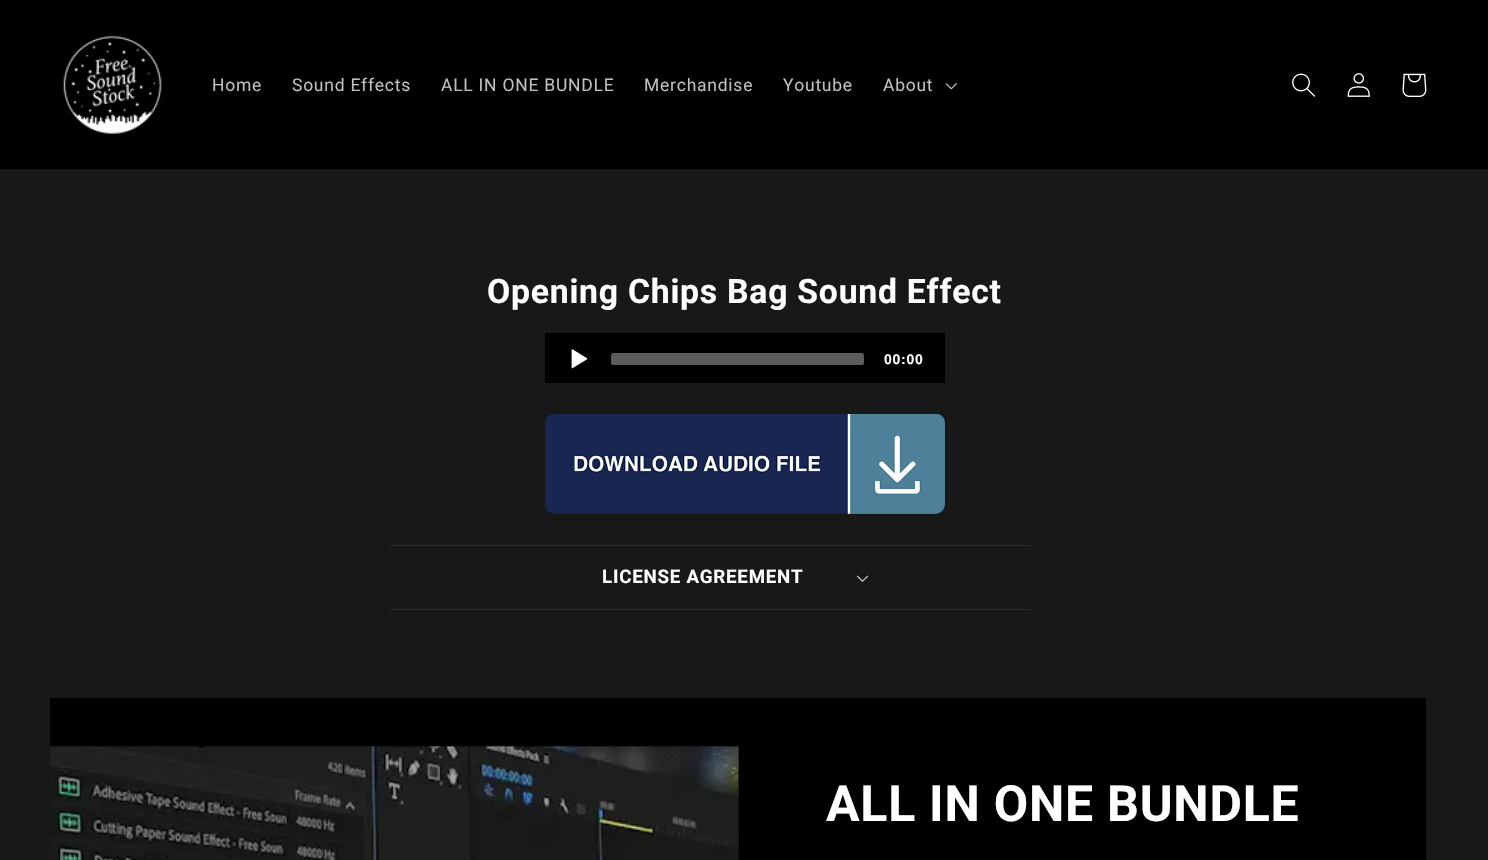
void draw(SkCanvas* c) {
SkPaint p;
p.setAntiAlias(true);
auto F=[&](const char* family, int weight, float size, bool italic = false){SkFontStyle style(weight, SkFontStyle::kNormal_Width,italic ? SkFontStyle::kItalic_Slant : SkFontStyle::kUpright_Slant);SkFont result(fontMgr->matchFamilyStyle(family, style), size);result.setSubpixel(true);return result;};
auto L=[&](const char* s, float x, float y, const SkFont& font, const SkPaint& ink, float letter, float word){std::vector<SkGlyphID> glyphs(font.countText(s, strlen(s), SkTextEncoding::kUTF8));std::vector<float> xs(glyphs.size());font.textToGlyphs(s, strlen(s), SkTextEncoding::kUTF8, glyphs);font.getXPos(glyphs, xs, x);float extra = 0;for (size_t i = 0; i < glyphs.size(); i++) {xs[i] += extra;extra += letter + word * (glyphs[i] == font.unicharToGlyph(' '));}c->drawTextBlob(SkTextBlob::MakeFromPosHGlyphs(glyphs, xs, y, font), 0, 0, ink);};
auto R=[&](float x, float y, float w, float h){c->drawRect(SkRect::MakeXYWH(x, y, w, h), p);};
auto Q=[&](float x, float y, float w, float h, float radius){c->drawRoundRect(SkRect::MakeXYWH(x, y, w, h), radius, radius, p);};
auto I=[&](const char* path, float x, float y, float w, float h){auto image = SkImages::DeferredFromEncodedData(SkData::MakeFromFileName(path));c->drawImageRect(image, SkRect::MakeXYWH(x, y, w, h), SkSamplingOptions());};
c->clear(0xff181818);
p.setColor(0xff000000);
R(0,0,1488,169);
p.setColor(0xff141414);
R(0,169,1488,1);
I("1.png",63,36,99,98);
auto f1 = F("Roboto",400,17.5);
p.setColor(0xffbfbfbf);
L("Home",212,91,f1,p,.75,0);
L("Sound Effects",292,91,f1,p,.75,0);
L("ALL IN ONE BUNDLE",441,91,f1,p,.75,0);
L("Merchandise",644,91,f1,p,.75,0);
L("Youtube",783,91,f1,p,.75,0);
L("About",883,91,f1,p,.75,0);
I("2.png",945,83,12,7);
I("3.png",1292,73,23,24);
I("4.png",1347,73,23,24);
I("5.png",1402,73,25,24);
auto f2 = F("Roboto",700,33.75);
p.setColor(0xffffffff);
L("Opening Chips Bag Sound Effect",487,303,f2,p,.75,0);
p.setColor(0xff000000);
R(545,333,400,50);
I("6.png",571,349,17,20);
p.setColor(0xff5c5c5c);
Q(611,353,253,12,2.5);
auto f3 = F("Liberation Sans",700,14);
p.setColor(0xffffffff);
L("00:00",884,364,f3,p,.75,0);
I("7.png",545,414,400,100);
p.setColor(0xff2a2a2a);
R(389,545,641,1);
R(389,609,641,1);
auto f4 = F("Roboto",700,18.75);
p.setColor(0xffffffff);
L("LICENSE AGREEMENT",602,583,f4,p,.75,0);
I("8.png",856,575,13,7);
p.setColor(0xff000000);
R(50,698,1376,162);
I("9.png",50,745,689,115);
auto f5 = F("Roboto",700,50);
p.setColor(0xffffffff);
L("ALL IN ONE BUNDLE",826,821,f5,p,.75,0);
}
